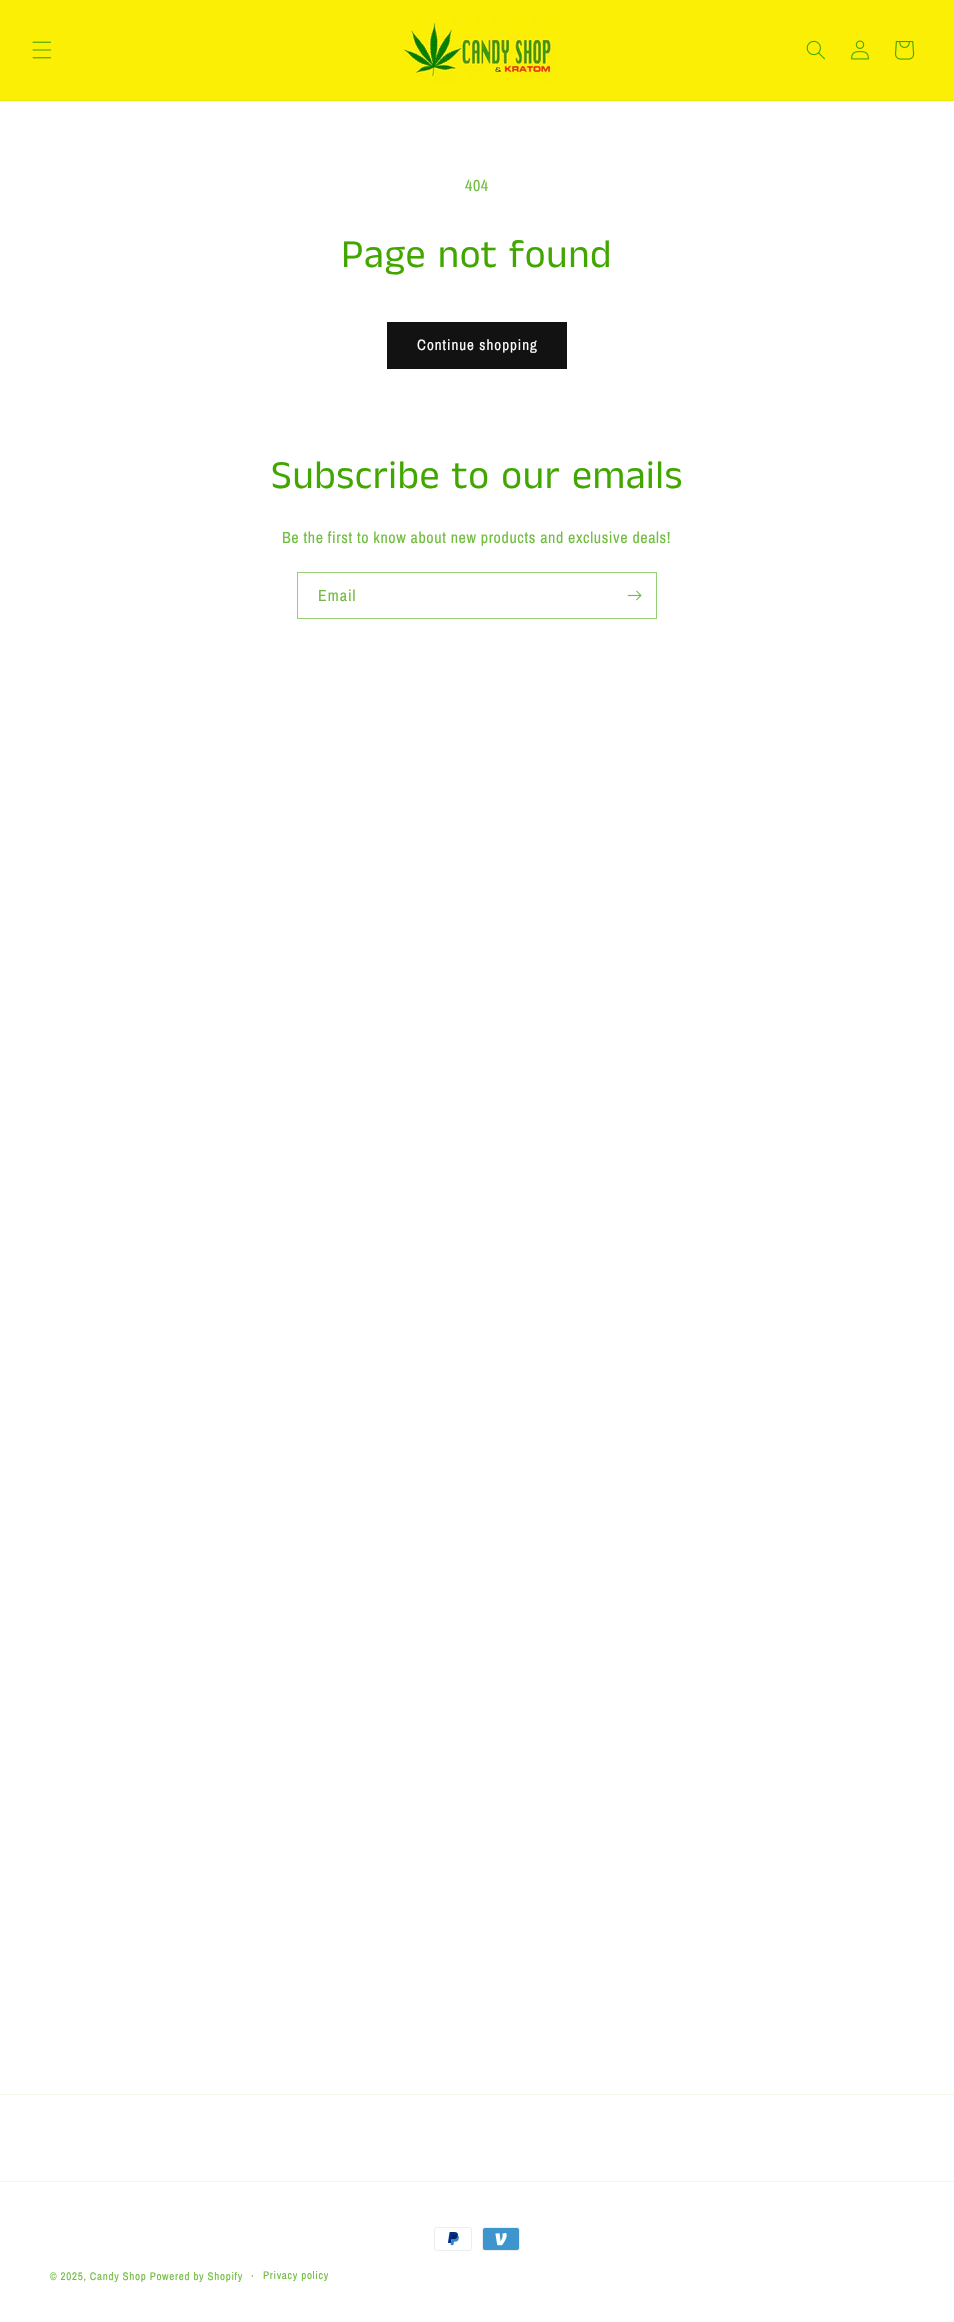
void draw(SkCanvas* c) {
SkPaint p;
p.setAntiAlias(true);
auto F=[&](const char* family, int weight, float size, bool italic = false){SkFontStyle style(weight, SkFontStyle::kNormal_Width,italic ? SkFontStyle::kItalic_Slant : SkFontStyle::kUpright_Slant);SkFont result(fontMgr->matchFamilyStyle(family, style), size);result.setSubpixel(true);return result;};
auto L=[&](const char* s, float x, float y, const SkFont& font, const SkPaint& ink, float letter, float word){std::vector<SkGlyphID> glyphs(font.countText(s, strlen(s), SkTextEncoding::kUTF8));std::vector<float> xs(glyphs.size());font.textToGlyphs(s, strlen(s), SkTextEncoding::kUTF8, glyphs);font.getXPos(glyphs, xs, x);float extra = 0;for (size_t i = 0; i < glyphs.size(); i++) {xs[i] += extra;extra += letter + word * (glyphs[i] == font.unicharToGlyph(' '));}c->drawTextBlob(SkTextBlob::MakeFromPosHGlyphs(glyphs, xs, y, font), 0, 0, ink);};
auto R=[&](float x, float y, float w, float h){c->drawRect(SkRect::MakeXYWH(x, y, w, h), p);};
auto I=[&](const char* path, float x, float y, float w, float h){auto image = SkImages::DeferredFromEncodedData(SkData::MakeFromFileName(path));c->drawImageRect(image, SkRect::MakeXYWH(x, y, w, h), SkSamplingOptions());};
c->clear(0xffffffff);
p.setColor(0xfffbef05);
R(0,0,954,100);
p.setColor(0xffece905);
R(0,100,954,1);
I("1.png",32,41,20,18);
I("2.png",403,18,154,64);
I("3.png",806,40,19,20);
I("4.png",851,40,18,20);
I("5.png",895,41,20,19);
auto f1 = F("Archivo Narrow",400,16);
p.setColor(0xff71bd40);
L("404",465,191,f1,p,.6,0);
auto f2 = F("Anek Tamil",400,40);
p.setColor(0xff41a700);
L("Page not found",341,267,f2,p,.6,0);
p.setColor(0xff121212);
R(387,322,180,47);
auto f3 = F("Archivo Narrow",400,15);
p.setColor(0xffffffff);
L("Continue shopping",417,350,f3,p,1,0);
p.setColor(0xff41a700);
L("Subscribe to our emails",271,488,f2,p,.6,0);
p.setColor(0xff71bd40);
L("Be the first to know about new products and exclusive deals!",282,543,f1,p,.6,0);
p.setStroke(true);
p.setStrokeWidth(1);
p.setColor(0xff97cf73);
c->drawRect(SkRect::MakeXYWH(297.5,572.5,359,46),p);
p.setStroke(false);
p.setColor(0xff71bd40);
L("Email",318,601,f1,p,1,0);
I("6.png",627,590,15,11);
p.setColor(0xfff0f8eb);
R(0,2094,954,1);
R(0,2181,954,1);
I("7.png",434,2227,38,24);
I("8.png",482,2227,38,24);
auto f4 = F("Archivo Narrow",400,11);
p.setColor(0xff71bd40);
L("© 2025, Candy Shop Powered by Shopify",50,2280,f4,p,.7,0);
auto f5 = F("Archivo Narrow",400,12);
L("·",251,2280,f5,p,.7,0);
L("Privacy policy",263,2279,f4,p,.7,0);
}
